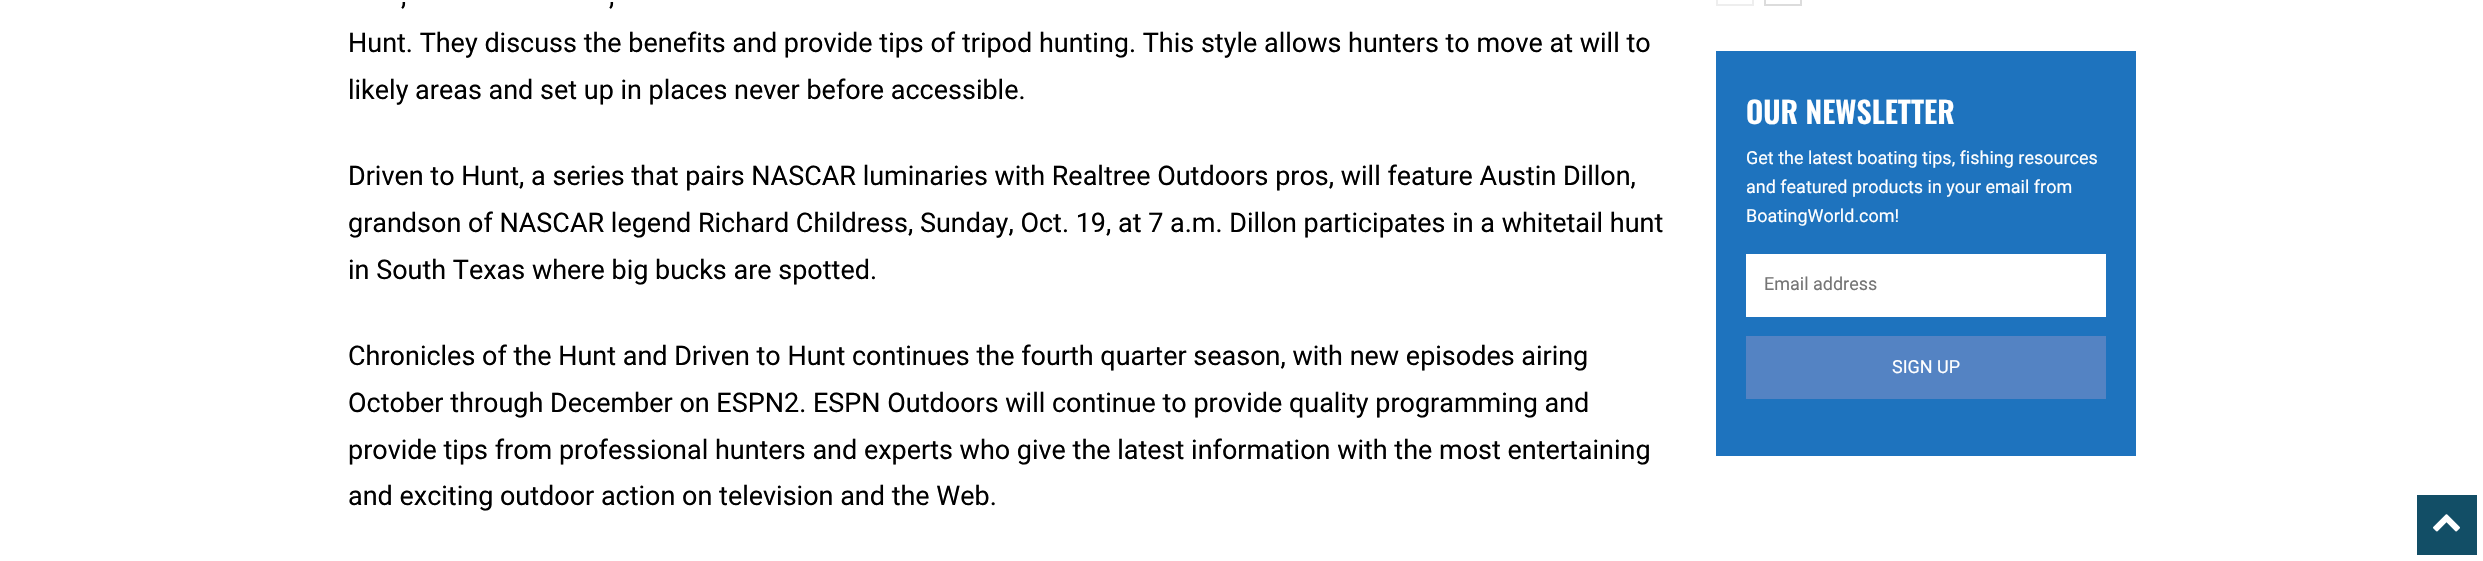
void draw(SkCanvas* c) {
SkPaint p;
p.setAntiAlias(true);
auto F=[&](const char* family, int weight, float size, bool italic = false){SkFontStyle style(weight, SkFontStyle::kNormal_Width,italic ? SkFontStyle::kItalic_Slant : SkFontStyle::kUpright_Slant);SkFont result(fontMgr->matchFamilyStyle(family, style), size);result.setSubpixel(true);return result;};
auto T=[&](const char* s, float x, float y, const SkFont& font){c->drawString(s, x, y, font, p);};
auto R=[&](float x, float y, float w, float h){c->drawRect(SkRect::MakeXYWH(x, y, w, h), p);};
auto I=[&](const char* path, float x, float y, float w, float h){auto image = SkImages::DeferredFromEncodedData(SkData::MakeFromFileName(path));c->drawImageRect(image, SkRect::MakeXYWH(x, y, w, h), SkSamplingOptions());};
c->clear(0xffffffff);
auto f1 = F("Roboto",400,27);
p.setColor(0xff000000);
T(",",401,5,f1);
T(",",609,5,f1);
T("Hunt. They discuss the benefits and provide tips of tripod hunting. This style allows hunters to move at will to",348,52,f1);
T("likely areas and set up in places never before accessible.",348,99,f1);
T("Driven to Hunt, a series that pairs NASCAR luminaries with Realtree Outdoors pros, will feature Austin Dillon,",348,185,f1);
T("grandson of NASCAR legend Richard Childress, Sunday, Oct. 19, at 7 a.m. Dillon participates in a whitetail hunt",348,232,f1);
T("in South Texas where big bucks are spotted.",348,279,f1);
T("Chronicles of the Hunt and Driven to Hunt continues the fourth quarter season, with new episodes airing",348,365,f1);
T("October through December on ESPN2. ESPN Outdoors will continue to provide quality programming and",348,412,f1);
T("provide tips from professional hunters and experts who give the latest information with the most entertaining",348,459,f1);
T("and exciting outdoor action on television and the Web.",348,505,f1);
p.setStroke(true);
p.setStrokeWidth(2);
p.setColor(0xffeeeeee);
c->drawRect(SkRect::MakeXYWH(1717,-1,36,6),p);
p.setColor(0xffdcdcdc);
c->drawRect(SkRect::MakeXYWH(1765,-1,36,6),p);
p.setStroke(false);
p.setColor(0xff1e73be);
R(1716,51,420,405);
auto f2 = F("Oswald",600,30);
p.setColor(0xffffffff);
T("OUR NEWSLETTER",1746,124,f2);
auto f3 = F("Roboto",400,18);
T("Get the latest boating tips, fishing resources",1746,164,f3);
T("and featured products in your email from",1746,193,f3);
T("BoatingWorld.com!",1746,222,f3);
R(1746,254,360,63);
p.setColor(0xff757575);
T("Email address",1764,290,f3);
p.setColor(0xff5483c3);
R(1746,336,360,63);
p.setColor(0xffffffff);
T("SIGN UP",1892,373,f3);
p.setColor(0xff124e66);
R(2417,495,60,60);
I("1.png",2433,514,27,18);
}
